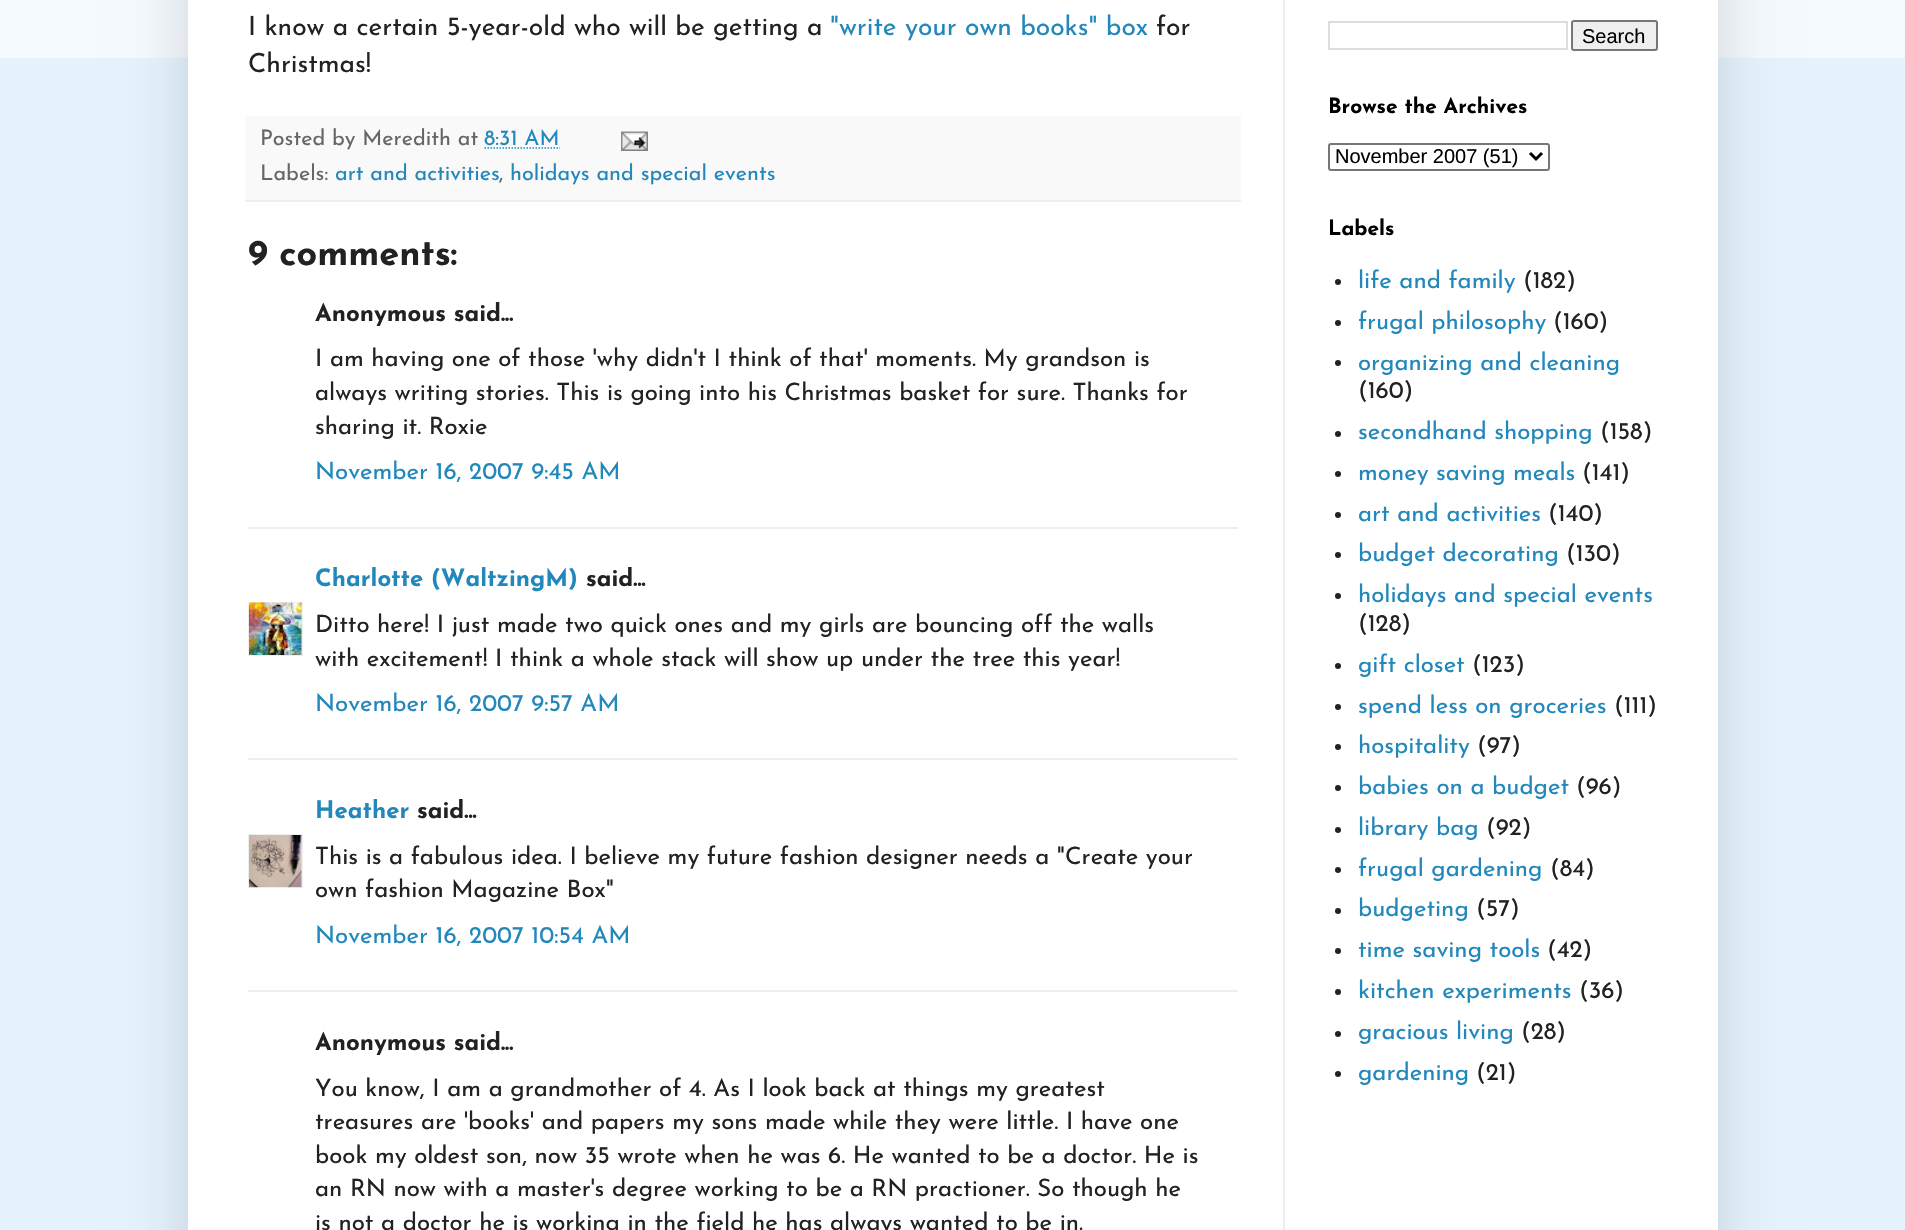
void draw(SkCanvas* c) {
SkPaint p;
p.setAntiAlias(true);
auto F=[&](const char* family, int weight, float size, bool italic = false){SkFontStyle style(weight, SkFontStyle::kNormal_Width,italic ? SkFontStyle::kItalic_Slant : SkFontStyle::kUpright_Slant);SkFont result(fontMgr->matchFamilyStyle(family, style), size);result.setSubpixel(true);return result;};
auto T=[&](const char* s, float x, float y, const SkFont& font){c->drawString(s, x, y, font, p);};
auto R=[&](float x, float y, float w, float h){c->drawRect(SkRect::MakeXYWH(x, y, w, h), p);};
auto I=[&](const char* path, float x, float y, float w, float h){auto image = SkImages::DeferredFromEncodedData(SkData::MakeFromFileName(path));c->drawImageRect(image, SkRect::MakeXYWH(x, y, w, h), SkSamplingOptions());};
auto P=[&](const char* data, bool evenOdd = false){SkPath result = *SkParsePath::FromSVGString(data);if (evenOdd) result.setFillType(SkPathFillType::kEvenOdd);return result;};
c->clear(0xffe6f3fd);
I("1.png",0,0,1905,58);
p.setColor(0x26000000);
p.setMaskFilter(SkMaskFilter::MakeBlur(kNormal_SkBlurStyle, 30));
c->drawRect(SkRect::MakeXYWH(188,-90,1530,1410),p);
p.setMaskFilter(nullptr);
p.setColor(0xffffffff);
R(188,0,1530,1230);
p.setColor(0xffeeeeee);
R(1283,0,2,1230);
auto f1 = F("Josefin Sans",400,26.4);
p.setColor(0xff222222);
T("I know a certain 5-year-old who will be getting a",248,35,f1);
p.setColor(0xff2288bb);
T("\"write your own books\" box",830,35,f1);
p.setColor(0xff222222);
T("for",1156,35,f1);
T("Christmas!",248,72,f1);
p.setColor(0xfff9f9f9);
R(245,116,996,84);
p.setColor(0xffeeeeee);
R(245,200,996,2);
auto f2 = F("Josefin Sans",400,21.6);
p.setColor(0xff666666);
T("Posted by Meredith at",260,145,f2);
p.setColor(0xff2288bb);
T("8:31 AM",484,145,f2);
p.setStroke(true);
p.setStrokeWidth(1.5);
p.setPathEffect(SkDashPathEffect::Make({{1.5f,1.5f}}, 0));
c->drawPath(P("M484.5 148h75.5"),p);
p.setPathEffect(nullptr);
I("2.png",621,131,27,20);
p.setStroke(false);
p.setColor(0xff666666);
T("Labels:",260,180,f2);
p.setColor(0xff2288bb);
T("art and activities",335,180,f2);
p.setColor(0xff666666);
T(",",499,180,f2);
p.setColor(0xff2288bb);
T("holidays and special events",510,180,f2);
auto f3 = F("Josefin Sans",700,36);
p.setColor(0xff222222);
T("9 comments:",248,265,f3);
auto f4 = F("Josefin Sans",700,24);
T("Anonymous said...",315,321,f4);
auto f5 = F("Josefin Sans",400,24);
T("I am having one of those 'why didn't I think of that' moments. My grandson is",315,366,f5);
T("always writing stories. This is going into his Christmas basket for sure. Thanks for",315,400,f5);
T("sharing it. Roxie",315,434,f5);
p.setColor(0xff2288bb);
T("November 16, 2007 9:45 AM",315,479,f5);
p.setColor(0xffeeeeee);
R(248,527,990,2);
p.setColor(0xff2288bb);
T("Charlotte (WaltzingM)",315,586,f4);
p.setColor(0xff222222);
T("said...",586,586,f4);
c->save();
c->clipRect(SkRect::MakeXYWH(248,602,55,54));
p.setStroke(true);
p.setStrokeWidth(2);
p.setColor(0xffeeeeee);
c->drawRect(SkRect::MakeXYWH(249,603,53,53),p);
c->restore();
I("3.png",249,602,53,53);
p.setStroke(false);
p.setColor(0xff222222);
T("Ditto here! I just made two quick ones and my girls are bouncing off the walls",315,632,f5);
T("with excitement! I think a whole stack will show up under the tree this year!",315,666,f5);
p.setColor(0xff2288bb);
T("November 16, 2007 9:57 AM",315,711,f5);
p.setColor(0xffeeeeee);
R(248,758,990,2);
p.setColor(0xff2288bb);
T("Heather",315,818,f4);
p.setColor(0xff222222);
T("said...",417,818,f4);
c->save();
c->clipRect(SkRect::MakeXYWH(248,834,55,54));
p.setStroke(true);
p.setColor(0xffeeeeee);
c->drawRect(SkRect::MakeXYWH(249,835,53,54),p);
c->restore();
I("4.png",249,835,53,53);
p.setStroke(false);
p.setColor(0xff222222);
T("This is a fabulous idea. I believe my future fashion designer needs a \"Create your",315,864,f5);
T("own fashion Magazine Box\"",315,897,f5);
p.setColor(0xff2288bb);
T("November 16, 2007 10:54 AM",315,943,f5);
p.setColor(0xffeeeeee);
R(248,990,990,2);
p.setColor(0xff222222);
T("Anonymous said...",315,1050,f4);
T("You know, I am a grandmother of 4. As I look back at things my greatest",315,1096,f5);
T("treasures are 'books' and papers my sons made while they were little. I have one",315,1129,f5);
T("book my oldest son, now 35 wrote when he was 6. He wanted to be a doctor. He is",315,1163,f5);
T("an RN now with a master's degree working to be a RN practioner. So though he",315,1196,f5);
T("is not a doctor he is working in the field he has always wanted to be in.",315,1230,f5);
p.setStroke(true);
p.setColor(0xffdddddd);
c->drawRect(SkRect::MakeXYWH(1329,22,238,27),p);
p.setStroke(false);
p.setColor(0xffefefef);
c->drawRoundRect(SkRect::MakeXYWH(1572,21,85,29),2,2,p);
p.setStroke(true);
p.setColor(0xff767676);
c->drawRoundRect(SkRect::MakeXYWH(1572,21,85,29),2,2,p);
auto f6 = F("Liberation Sans",400,20);
p.setStroke(false);
p.setColor(0xff000000);
T("Search",1582,43,f6);
auto f7 = F("Josefin Sans",700,21);
T("Browse the Archives",1328,113,f7);
p.setStroke(true);
p.setColor(0xff767676);
c->drawRoundRect(SkRect::MakeXYWH(1329,144,220,26),2,2,p);
p.setStrokeWidth(3);
p.setColor(0xff000000);
c->drawPath(P("M1530 153l6 6l6-6"),p);
p.setStroke(false);
T("November 2007 (51)",1335,163,f6);
T("Labels",1328,235,f7);
p.setColor(0xff222222);
c->drawCircle(1338,282,3,p);
p.setColor(0xff2288bb);
T("life and family",1358,288,f5);
p.setColor(0xff222222);
T("(182)",1523,288,f5);
c->drawCircle(1338,323,3,p);
p.setColor(0xff2288bb);
T("frugal philosophy",1358,329,f5);
p.setColor(0xff222222);
T("(160)",1553,329,f5);
c->drawCircle(1338,363,3,p);
p.setColor(0xff2288bb);
T("organizing and cleaning",1358,370,f5);
p.setColor(0xff222222);
T("(160)",1358,398,f5);
c->drawCircle(1338,434,3,p);
p.setColor(0xff2288bb);
T("secondhand shopping",1358,439,f5);
p.setColor(0xff222222);
T("(158)",1600,439,f5);
c->drawCircle(1338,474,3,p);
p.setColor(0xff2288bb);
T("money saving meals",1358,480,f5);
p.setColor(0xff222222);
T("(141)",1582,480,f5);
c->drawCircle(1338,515,3,p);
p.setColor(0xff2288bb);
T("art and activities",1358,521,f5);
p.setColor(0xff222222);
T("(140)",1548,521,f5);
c->drawCircle(1338,555,3,p);
p.setColor(0xff2288bb);
T("budget decorating",1358,561,f5);
p.setColor(0xff222222);
T("(130)",1566,561,f5);
c->drawCircle(1338,596,3,p);
p.setColor(0xff2288bb);
T("holidays and special events",1358,602,f5);
p.setColor(0xff222222);
T("(128)",1358,631,f5);
c->drawCircle(1338,666,3,p);
p.setColor(0xff2288bb);
T("gift closet",1358,672,f5);
p.setColor(0xff222222);
T("(123)",1472,672,f5);
c->drawCircle(1338,707,3,p);
p.setColor(0xff2288bb);
T("spend less on groceries",1358,713,f5);
p.setColor(0xff222222);
T("(111)",1614,713,f5);
c->drawCircle(1338,747,3,p);
p.setColor(0xff2288bb);
T("hospitality",1358,753,f5);
p.setColor(0xff222222);
T("(97)",1477,753,f5);
c->drawCircle(1338,788,3,p);
p.setColor(0xff2288bb);
T("babies on a budget",1358,794,f5);
p.setColor(0xff222222);
T("(96)",1576,794,f5);
c->drawCircle(1338,830,3,p);
p.setColor(0xff2288bb);
T("library bag",1358,835,f5);
p.setColor(0xff222222);
T("(92)",1486,835,f5);
c->drawCircle(1338,870,3,p);
p.setColor(0xff2288bb);
T("frugal gardening",1358,876,f5);
p.setColor(0xff222222);
T("(84)",1550,876,f5);
c->drawCircle(1338,911,3,p);
p.setColor(0xff2288bb);
T("budgeting",1358,916,f5);
p.setColor(0xff222222);
T("(57)",1476,916,f5);
c->drawCircle(1338,951,3,p);
p.setColor(0xff2288bb);
T("time saving tools",1358,957,f5);
p.setColor(0xff222222);
T("(42)",1547,957,f5);
c->drawCircle(1338,992,3,p);
p.setColor(0xff2288bb);
T("kitchen experiments",1358,998,f5);
p.setColor(0xff222222);
T("(36)",1579,998,f5);
c->drawCircle(1338,1034,3,p);
p.setColor(0xff2288bb);
T("gracious living",1358,1039,f5);
p.setColor(0xff222222);
T("(28)",1521,1039,f5);
c->drawCircle(1338,1074,3,p);
p.setColor(0xff2288bb);
T("gardening",1358,1080,f5);
p.setColor(0xff222222);
T("(21)",1476,1080,f5);
}
